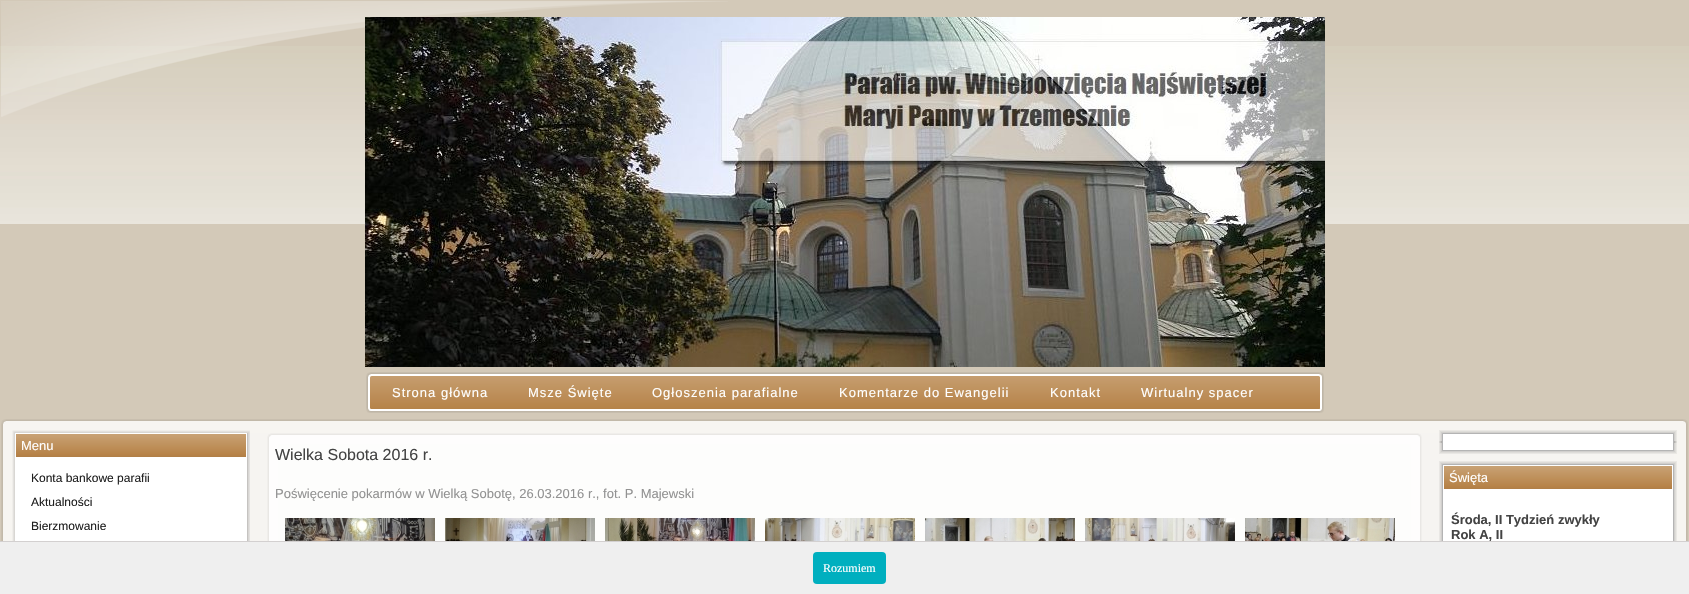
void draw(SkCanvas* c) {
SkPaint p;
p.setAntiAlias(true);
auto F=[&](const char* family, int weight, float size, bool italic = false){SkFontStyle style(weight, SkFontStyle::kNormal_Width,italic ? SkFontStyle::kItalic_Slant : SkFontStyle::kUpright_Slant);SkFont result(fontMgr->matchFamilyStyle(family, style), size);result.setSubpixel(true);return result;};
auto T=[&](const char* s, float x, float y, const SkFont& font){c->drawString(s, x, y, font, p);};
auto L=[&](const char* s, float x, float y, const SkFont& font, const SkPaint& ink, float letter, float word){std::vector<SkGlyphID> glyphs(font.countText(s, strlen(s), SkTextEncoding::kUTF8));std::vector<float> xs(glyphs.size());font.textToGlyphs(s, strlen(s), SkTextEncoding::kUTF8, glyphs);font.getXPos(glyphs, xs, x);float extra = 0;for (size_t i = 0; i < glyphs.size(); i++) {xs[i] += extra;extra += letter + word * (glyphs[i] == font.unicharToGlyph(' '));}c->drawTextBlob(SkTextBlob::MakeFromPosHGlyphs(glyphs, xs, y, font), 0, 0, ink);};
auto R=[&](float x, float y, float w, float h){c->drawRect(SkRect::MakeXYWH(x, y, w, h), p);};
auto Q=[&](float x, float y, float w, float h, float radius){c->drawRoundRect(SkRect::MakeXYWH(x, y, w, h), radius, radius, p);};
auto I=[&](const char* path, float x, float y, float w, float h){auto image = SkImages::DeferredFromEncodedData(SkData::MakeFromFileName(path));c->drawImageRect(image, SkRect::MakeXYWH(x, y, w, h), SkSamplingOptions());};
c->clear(0xffd3c9b8);
I("1.png",0,46,1689,178);
I("2.png",1,1,727,116);
I("3.png",365,17,960,350);
I("4.png",366,372,950,41);
I("5.png",1316,372,8,41);
auto f1 = F("Liberation Sans",400,13);
p.setColor(0xffffffff);
L("Strona główna",392,397,f1,p,1,0);
L("Msze Święte",528,397,f1,p,1,0);
L("Ogłoszenia parafialne",652,397,f1,p,1,0);
L("Komentarze do Ewangelii",839,397,f1,p,1,0);
L("Kontakt",1050,397,f1,p,1,0);
L("Wirtualny spacer",1141,397,f1,p,1,0);
I("6.png",1,419,14,14);
I("7.png",15,419,1659,14);
I("8.png",1674,419,14,14);
I("9.png",1,433,14,108);
p.setColor(0xfff6f4f1);
R(247,433,1427,108);
I("10.png",1674,433,14,108);
I("11.png",12,430,13,13);
I("12.png",25,430,212,4);
I("13.png",237,430,13,13);
I("14.png",12,443,13,98);
I("16.png",237,443,13,98);
I("15.png",16,434,230,23);
p.setColor(0xffffffff);
T("Menu",21,450,f1);
R(25,457,212,84);
auto f2 = F("Liberation Sans",400,12);
p.setColor(0xff1f1f1f);
T("Konta bankowe parafii",31,482,f2);
T("Aktualności",31,506,f2);
T("Bierzmowanie",31,530,f2);
I("17.png",267,433,11,11);
I("18.png",278,433,1133,11);
I("19.png",1411,433,11,11);
I("20.png",267,444,11,97);
p.setColor(0xfffdfdfc);
R(278,444,1133,97);
I("21.png",1411,444,11,97);
auto f3 = F("Liberation Sans",400,16);
p.setColor(0xff434343);
T("Wielka Sobota 2016 r.",275,460,f3);
p.setColor(0xff929292);
T("Poświęcenie pokarmów w Wielką Sobotę, 26.03.2016 r., fot. P. Majewski",275,498,f1);
I("22.png",285,518,150,23);
I("23.png",445,518,150,23);
I("24.png",605,518,150,23);
I("25.png",765,518,150,23);
I("26.png",925,518,150,23);
I("27.png",1085,518,150,23);
I("28.png",1245,518,150,23);
I("29.png",1439,430,13,13);
I("30.png",1452,430,212,13);
I("31.png",1664,430,13,13);
I("32.png",1439,441,13,13);
I("33.png",1452,443,212,11);
I("34.png",1664,441,13,13);
I("35.png",1439,461,13,13);
I("36.png",1452,461,212,5);
I("37.png",1664,461,13,13);
I("38.png",1439,474,13,67);
I("40.png",1664,474,13,67);
I("39.png",1444,466,228,23);
p.setColor(0xffffffff);
T("Święta",1449,482,f1);
R(1452,489,212,52);
auto f4 = F("Liberation Sans",700,13);
p.setColor(0xff434343);
T("Środa, II Tydzień zwykły",1451,524,f4);
T("Rok A, II",1451,539,f4);
p.setColor(0xffefefef);
R(0,542,1689,52);
p.setColor(0xffd3d0d0);
R(0,541,1689,1);
p.setColor(0xff00afbf);
Q(813,552,73,32,4);
auto f5 = F("Liberation Serif",400,12);
p.setColor(0xffffffff);
T("Rozumiem",823,572,f5);
}
